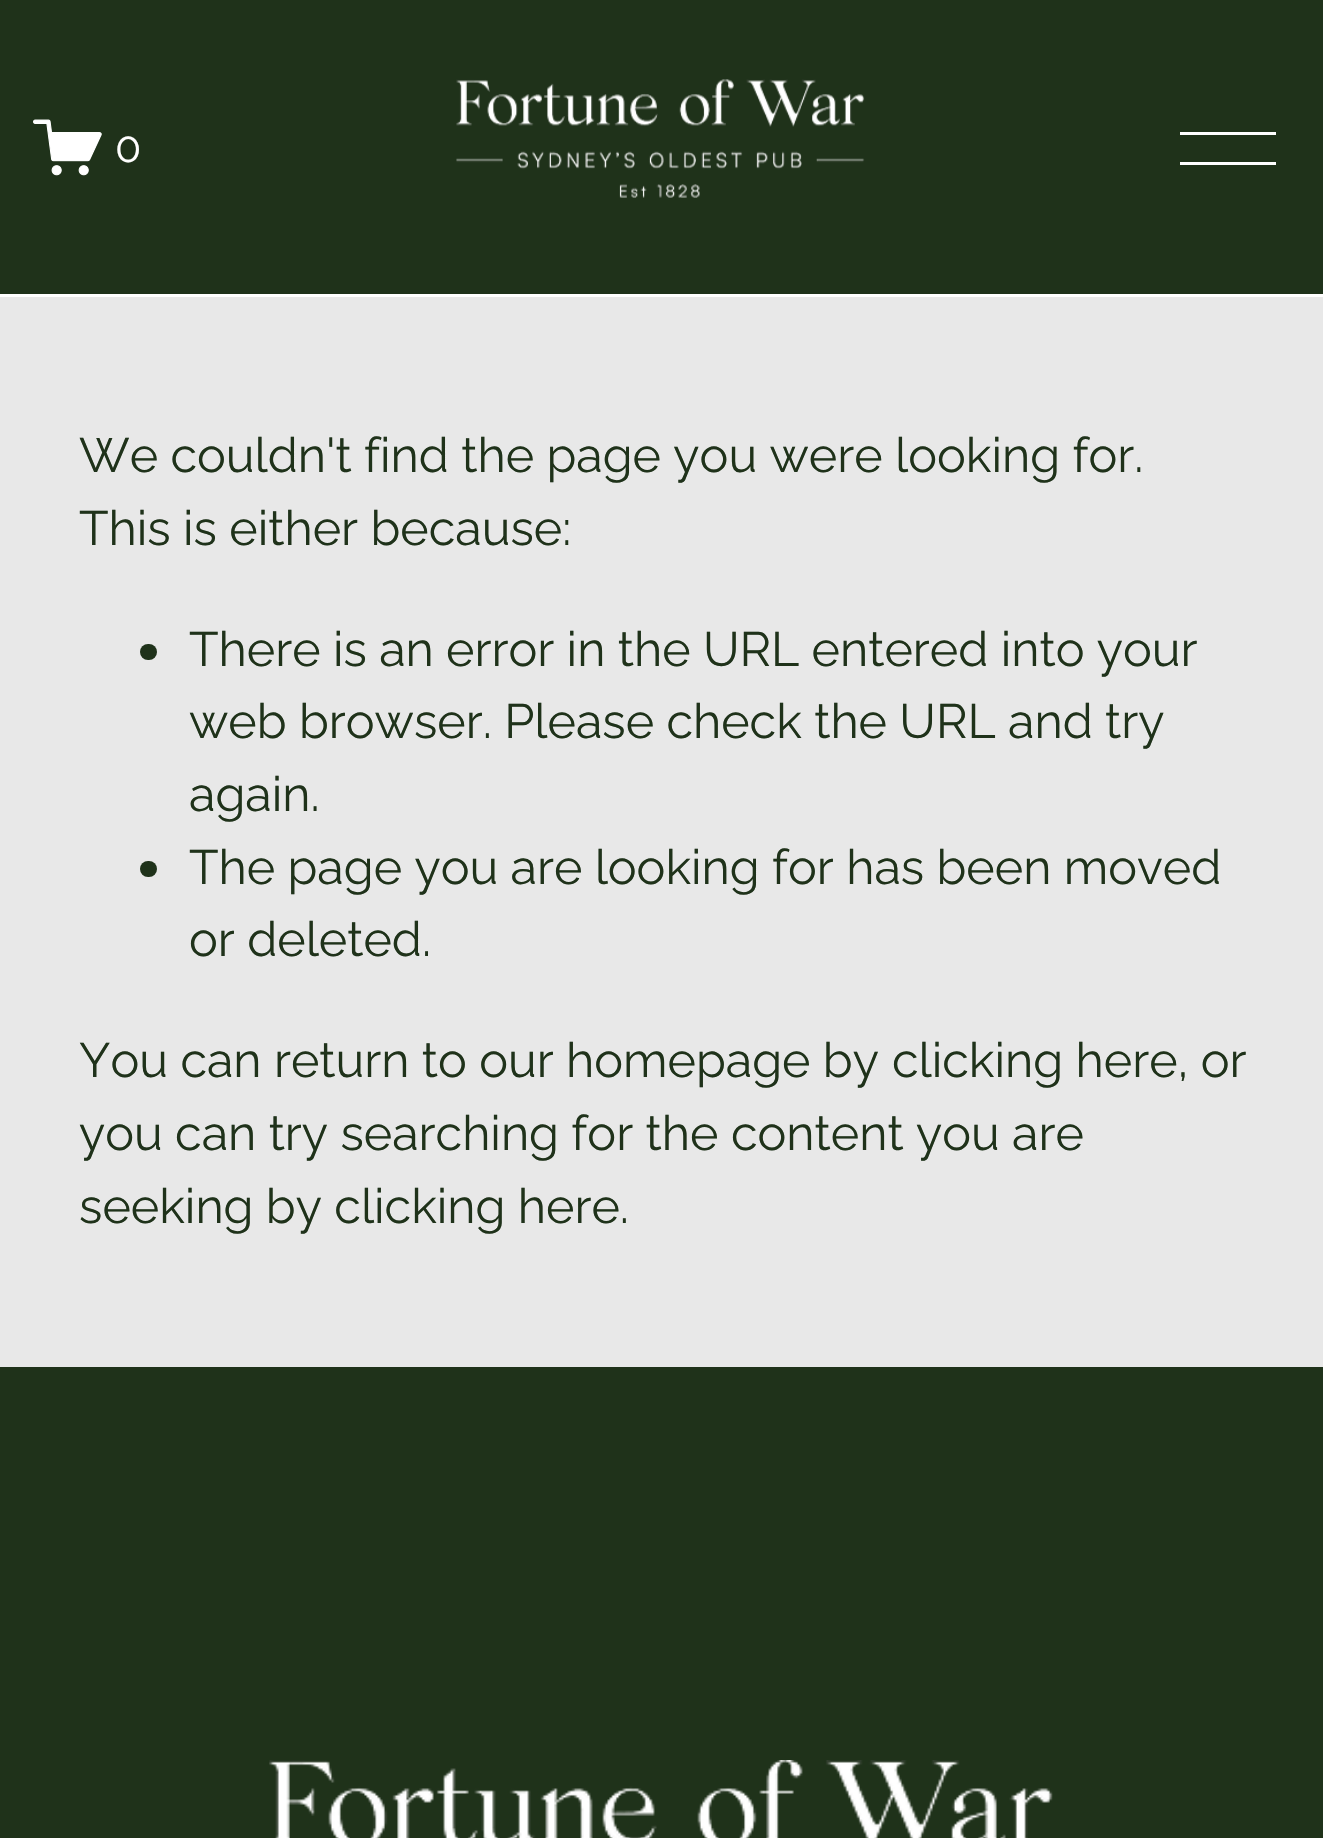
void draw(SkCanvas* c) {
SkPaint p;
p.setAntiAlias(true);
auto F=[&](const char* family, int weight, float size, bool italic = false){SkFontStyle style(weight, SkFontStyle::kNormal_Width,italic ? SkFontStyle::kItalic_Slant : SkFontStyle::kUpright_Slant);SkFont result(fontMgr->matchFamilyStyle(family, style), size);result.setSubpixel(true);return result;};
auto T=[&](const char* s, float x, float y, const SkFont& font){c->drawString(s, x, y, font, p);};
auto R=[&](float x, float y, float w, float h){c->drawRect(SkRect::MakeXYWH(x, y, w, h), p);};
auto Q=[&](float x, float y, float w, float h, float radius){c->drawRoundRect(SkRect::MakeXYWH(x, y, w, h), radius, radius, p);};
auto I=[&](const char* path, float x, float y, float w, float h){auto image = SkImages::DeferredFromEncodedData(SkData::MakeFromFileName(path));c->drawImageRect(image, SkRect::MakeXYWH(x, y, w, h), SkSamplingOptions());};
c->clear(0xffe8e8e8);
p.setColor(0xff1f321a);
R(0,0,1323,294);
p.setColor(0xffffffff);
R(0,294,1323,3);
I("1.png",33,119,69,57);
auto f1 = F("Raleway",400,43);
T("0",115,162,f1);
I("2.png",456,79,409,119);
R(1180,132,96,3);
R(1180,162,96,3);
auto f2 = F("Raleway",400,48.4);
p.setColor(0xff1f321a);
T("We couldn't find the page you were looking for.",79,472,f2);
T("This is either because:",79,545,f2);
Q(140,644,17,16,8);
T("There is an error in the URL entered into your",189,666,f2);
T("web browser. Please check the URL and try",189,738,f2);
T("again.",189,811,f2);
Q(140,861,17,16,8);
T("The page you are looking for has been moved",189,884,f2);
T("or deleted.",189,956,f2);
T("You can return to our homepage by",79,1077,f2);
T("clicking here, or",892,1077,f2);
T("you can try searching for the",79,1150,f2);
T("content you are",731,1150,f2);
T("seeking by clicking here.",79,1223,f2);
R(0,1367,1323,471);
I("3.png",269,1760,784,78);
}
